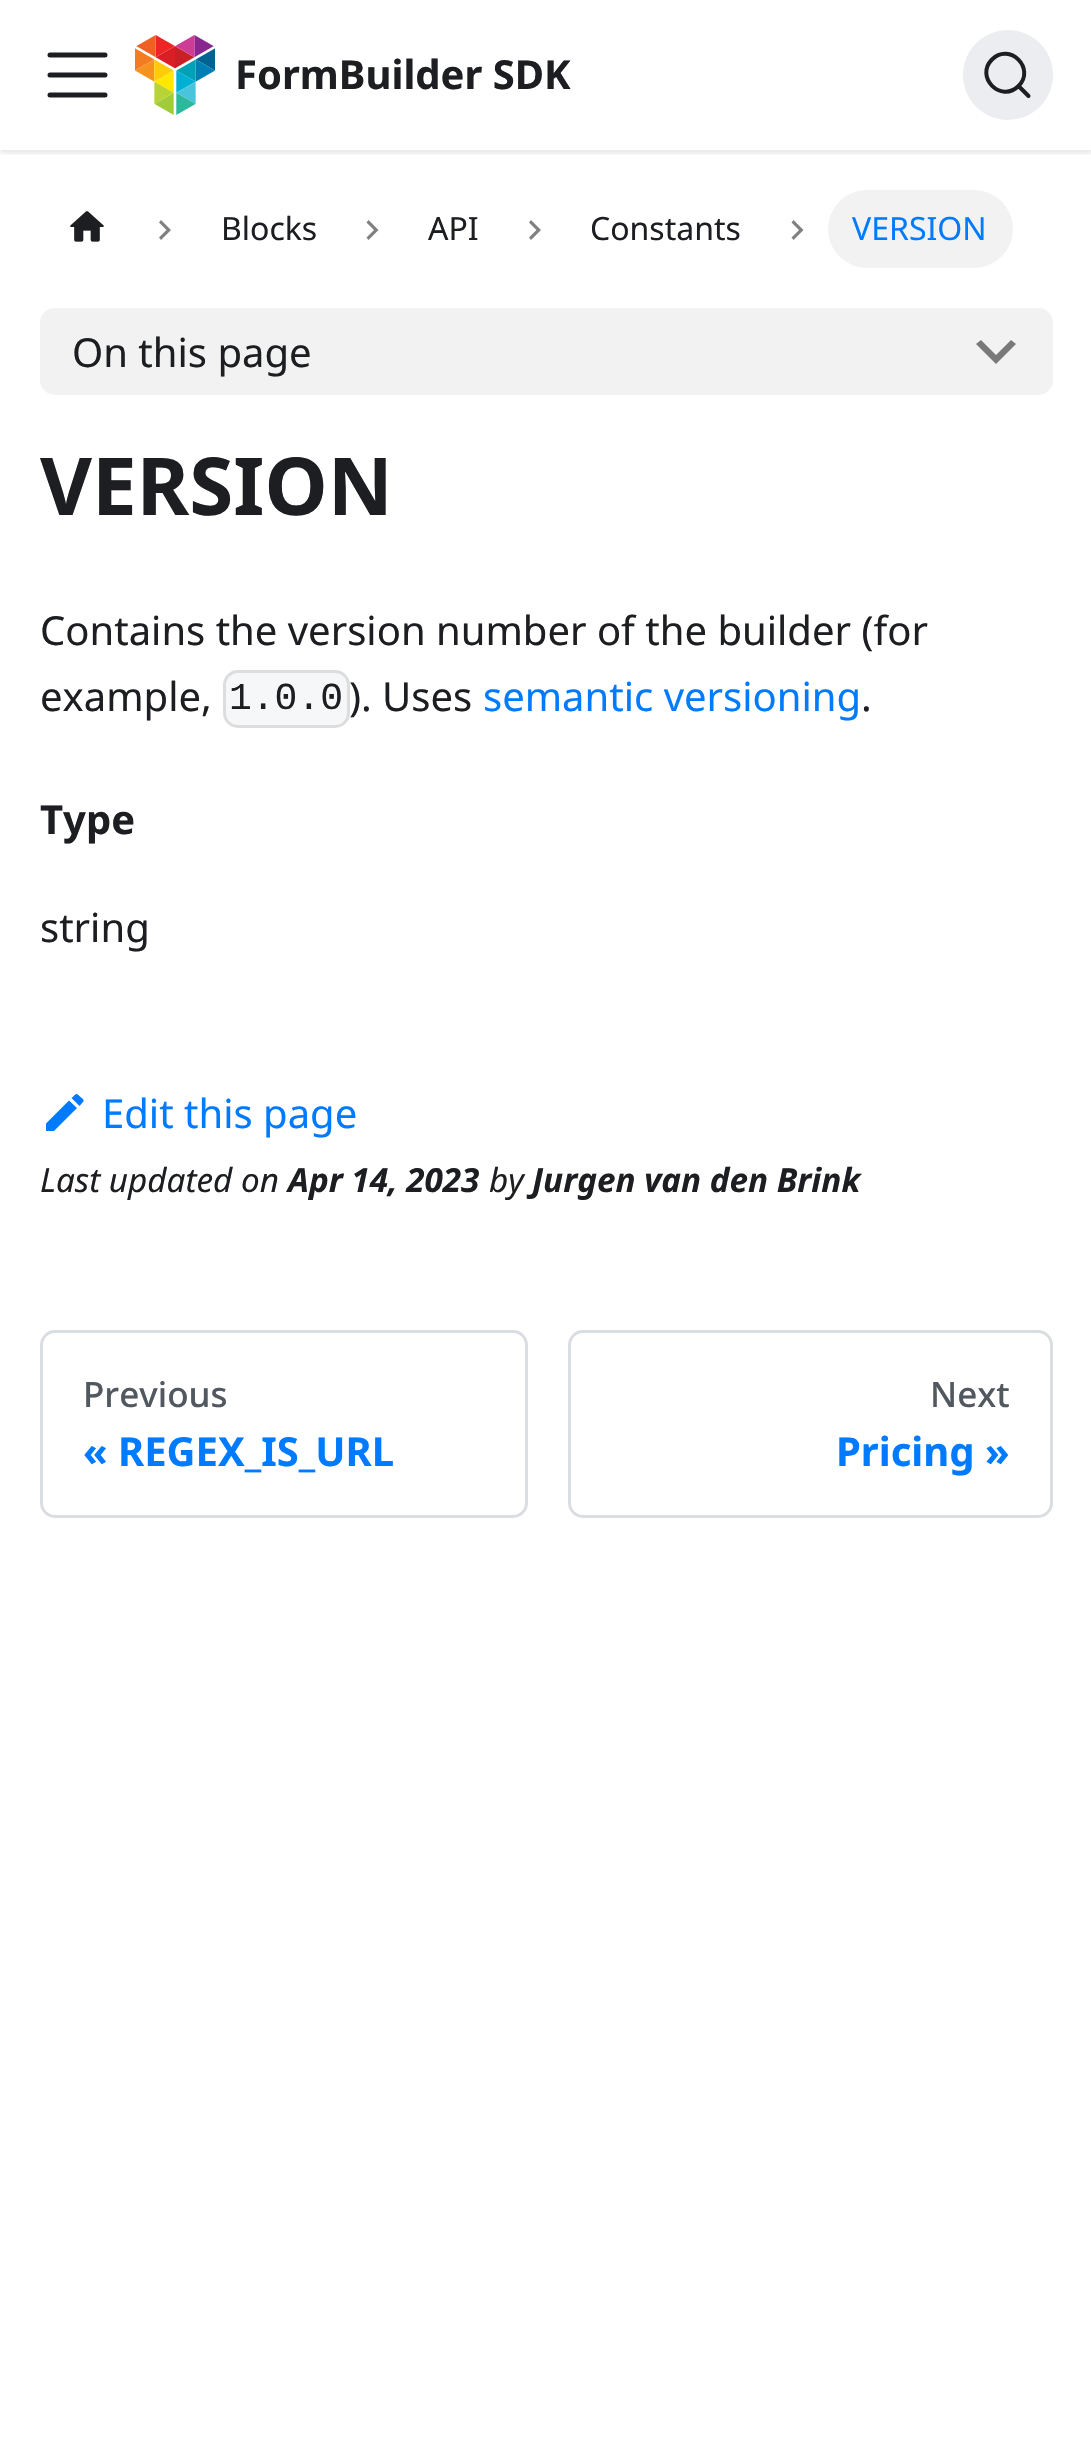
void draw(SkCanvas* c) {
SkPaint p;
p.setAntiAlias(true);
auto F=[&](const char* family, int weight, float size, bool italic = false){SkFontStyle style(weight, SkFontStyle::kNormal_Width,italic ? SkFontStyle::kItalic_Slant : SkFontStyle::kUpright_Slant);SkFont result(fontMgr->matchFamilyStyle(family, style), size);result.setSubpixel(true);return result;};
auto T=[&](const char* s, float x, float y, const SkFont& font){c->drawString(s, x, y, font, p);};
auto Q=[&](float x, float y, float w, float h, float radius){c->drawRoundRect(SkRect::MakeXYWH(x, y, w, h), radius, radius, p);};
auto I=[&](const char* path, float x, float y, float w, float h){auto image = SkImages::DeferredFromEncodedData(SkData::MakeFromFileName(path));c->drawImageRect(image, SkRect::MakeXYWH(x, y, w, h), SkSamplingOptions());};
auto P=[&](const char* data, bool evenOdd = false){SkPath result = *SkParsePath::FromSVGString(data);if (evenOdd) result.setFillType(SkPathFillType::kEvenOdd);return result;};
c->clear(0xffffffff);
c->save();
c->clipRect(SkRect::MakeXYWH(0,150,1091,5));
p.setColor(0x1a000000);
p.setMaskFilter(SkMaskFilter::MakeBlur(kNormal_SkBlurStyle, 2.5));
c->drawRect(SkRect::MakeXYWH(0,3,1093,150),p);
p.setMaskFilter(nullptr);
c->restore();
p.setStroke(true);
p.setStrokeWidth(5);
p.setStrokeCap(SkPaint::kRound_Cap);
p.setColor(0xff1c1e21);
c->drawPath(P("M50 55h55m-55 20h55m-55 20h55"),p);
I("1.png",135,35,80,80);
auto f1 = F("Noto Sans",700,40);
p.setStroke(false);
T("FormBuilder SDK",235,89,f1);
p.setColor(0xffebedf0);
c->drawCircle(1008,75,45,p);
p.setStroke(true);
p.setStrokeWidth(4);
p.setStrokeJoin(SkPaint::kRound_Join);
p.setColor(0xff1c1e21);
c->drawPath(P("M1018.5 86l10 10l-10-10c-17.5 17.5-44-9-26.5-26.5c17.5-17.5 44 9 26.5 26.5z"),p);
I("2.png",70,211,34,31);
p.setStroke(false);
p.setColor(0xff808080);
c->drawPath(P("M161 220l-2 2.5l7.5 7.5l-7.5 7.5l2 2.5l10-10z"),p);
auto f2 = F("Noto Sans",400,32);
p.setColor(0xff1c1e21);
T("Blocks",221,240,f2);
p.setColor(0xff808080);
c->drawPath(P("M368.5 220l-2 2.5l7.5 7.5l-7.5 7.5l2 2.5l10-10z"),p);
p.setColor(0xff1c1e21);
T("API",428,240,f2);
p.setColor(0xff808080);
c->drawPath(P("M531 220l-2 2.5l7.5 7.5l-7.5 7.5l2 2.5l10-10z"),p);
p.setColor(0xff1c1e21);
T("Constants",590,240,f2);
p.setColor(0xff808080);
c->drawPath(P("M793.5 220l-2 2.5l7.5 7.5l-7.5 7.5l2 2.5l10-10z"),p);
p.setColor(0xfff2f2f2);
Q(828,190,185,78,39);
p.setColor(0xff007bff);
T("VERSION",852,240,f2);
p.setColor(0xfff2f2f2);
Q(40,308,1013,87,15);
auto f3 = F("Noto Sans",400,40);
p.setColor(0xff1c1e21);
T("On this page",72,367,f3);
p.setColor(0xff797979);
c->drawPath(P("M1011 340l-15 15l-15-15l-5 4l20 20l20-20z"),p);
auto f4 = F("Noto Sans",700,80);
p.setColor(0xff1c1e21);
T("VERSION",40,515,f4);
T("Contains the version number of the builder (for",40,645,f3);
T("example,",40,711,f3);
p.setColor(0xfff6f7f8);
Q(223,670,127,58,15);
p.setStroke(true);
p.setStrokeWidth(3);
p.setStrokeCap(SkPaint::kButt_Cap);
p.setStrokeJoin(SkPaint::kMiter_Join);
p.setColor(0x1a000000);
c->drawRoundRect(SkRect::MakeXYWH(224.5,671.5,124,55),13.5,13.5,p);
auto f5 = F("Liberation Mono",400,38);
p.setStroke(false);
p.setColor(0xff1c1e21);
T("1.0.0",229,709,f5);
T("). Uses",349,711,f3);
p.setColor(0xff007bff);
T("semantic versioning",483,711,f3);
p.setColor(0xff1c1e21);
T(".",861,711,f3);
T("Type",40,834,f1);
T("string",40,942,f3);
p.setColor(0xff007bff);
T("Edit this page",102,1128,f3);
c->drawPath(P("M83 1102l-3.5 4l-8-8c5-4.5 4.5-6 9-1c1.5 1 4.5 3 2.5 5zm-37 21.5l23-23l8 7.5l-23 23h-8z"),p);
auto f6 = F("Noto Sans",400,33.25,true);
p.setColor(0xff1c1e21);
T("Last updated on",40,1192,f6);
auto f7 = F("Noto Sans",700,33.25,true);
T("Apr 14, 2023",288,1192,f7);
T("by",489,1192,f6);
T("Jurgen van den Brink",532,1192,f7);
p.setStroke(true);
p.setColor(0xffdadde1);
c->drawRoundRect(SkRect::MakeXYWH(41.5,1331.5,485,185),13.5,13.5,p);
auto f8 = F("Noto Sans",500,35);
p.setStroke(false);
p.setColor(0xff525860);
T("Previous",83,1407,f8);
p.setColor(0xff007bff);
T("« REGEX_IS_URL",83,1466,f1);
p.setStroke(true);
p.setColor(0xffdadde1);
c->drawRoundRect(SkRect::MakeXYWH(569.5,1331.5,482,185),13.5,13.5,p);
p.setStroke(false);
p.setColor(0xff525860);
T("Next",930,1407,f8);
p.setColor(0xff007bff);
T("Pricing »",836,1466,f1);
}
